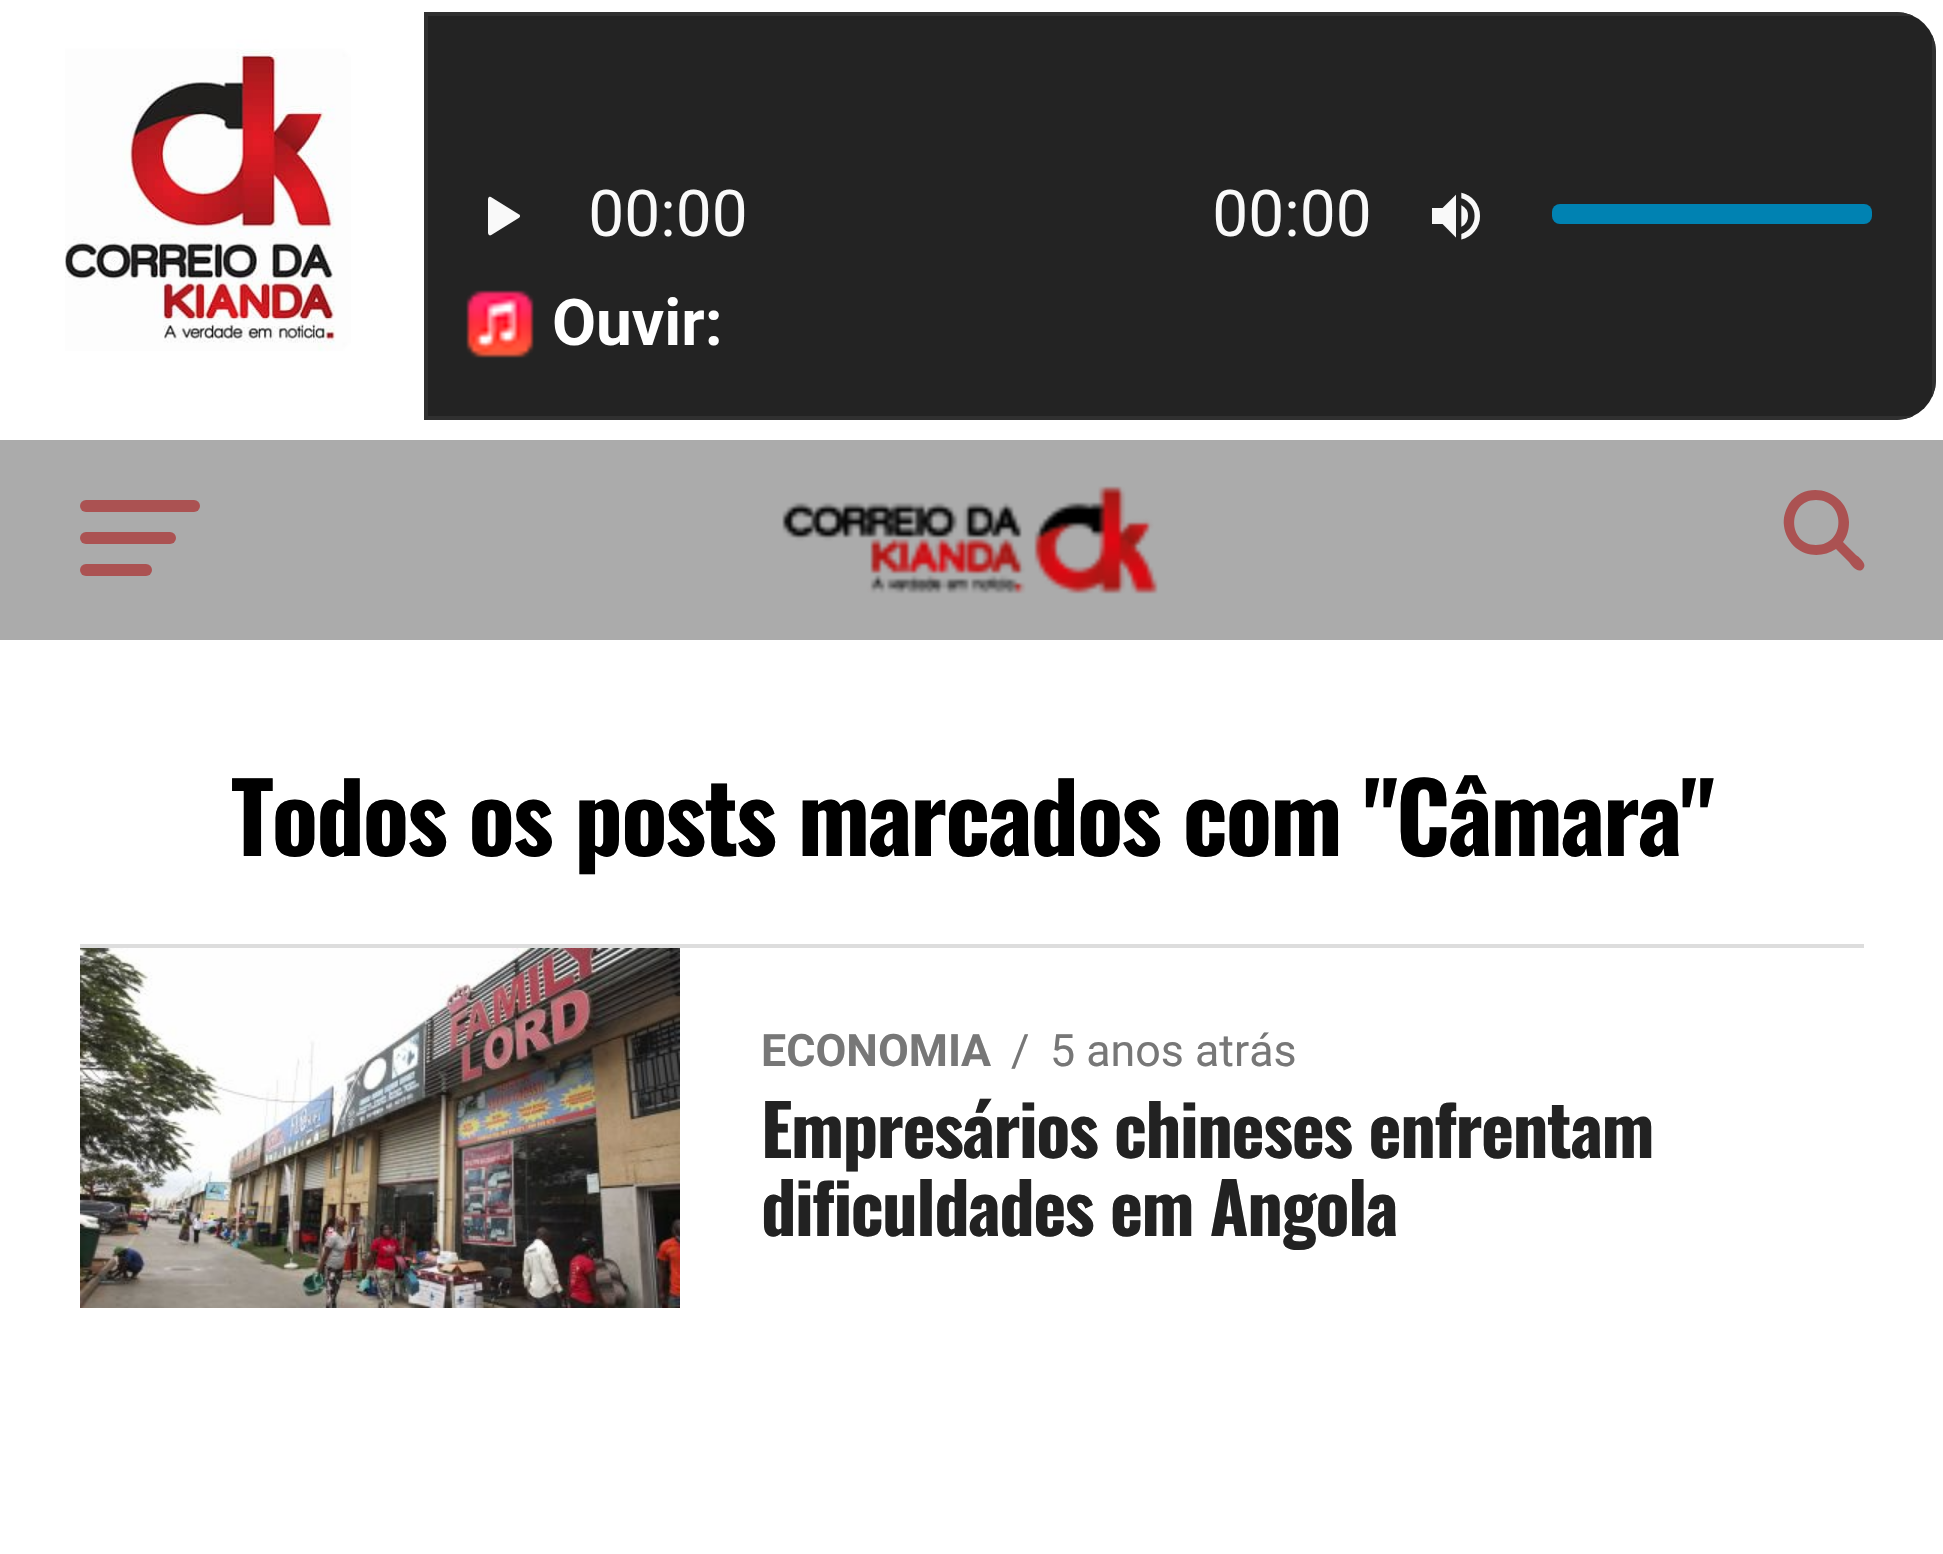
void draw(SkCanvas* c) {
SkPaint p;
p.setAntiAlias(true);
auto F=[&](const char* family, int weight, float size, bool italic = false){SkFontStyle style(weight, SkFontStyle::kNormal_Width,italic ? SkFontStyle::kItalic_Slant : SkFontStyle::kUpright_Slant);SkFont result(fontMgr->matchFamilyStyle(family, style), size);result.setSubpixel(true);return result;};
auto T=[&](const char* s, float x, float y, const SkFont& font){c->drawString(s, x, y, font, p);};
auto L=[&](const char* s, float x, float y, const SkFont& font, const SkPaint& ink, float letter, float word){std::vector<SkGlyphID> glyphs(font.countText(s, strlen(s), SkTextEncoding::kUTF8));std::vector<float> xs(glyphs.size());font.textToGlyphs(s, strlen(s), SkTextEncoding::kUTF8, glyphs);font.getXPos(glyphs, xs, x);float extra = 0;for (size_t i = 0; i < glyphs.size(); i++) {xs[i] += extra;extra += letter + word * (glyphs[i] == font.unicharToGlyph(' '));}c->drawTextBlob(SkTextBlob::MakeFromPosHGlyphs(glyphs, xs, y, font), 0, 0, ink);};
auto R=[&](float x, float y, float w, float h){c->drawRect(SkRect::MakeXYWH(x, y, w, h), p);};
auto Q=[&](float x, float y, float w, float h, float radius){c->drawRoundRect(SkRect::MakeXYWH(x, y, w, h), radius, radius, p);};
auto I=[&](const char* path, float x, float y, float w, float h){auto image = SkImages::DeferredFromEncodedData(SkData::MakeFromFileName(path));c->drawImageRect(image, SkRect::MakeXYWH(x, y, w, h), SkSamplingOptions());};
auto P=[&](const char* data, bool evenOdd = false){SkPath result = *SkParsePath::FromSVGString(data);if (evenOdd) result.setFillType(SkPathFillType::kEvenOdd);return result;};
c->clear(0xffffffff);
I("1.png",65,12,1871,408);
p.setColor(0xffababab);
R(0,440,1943,200);
p.setColor(0xffab5252);
Q(80,500,120,12,6);
Q(80,532,96,12,6);
Q(80,564,72,12,6);
I("2.png",782,486,376,108);
c->drawPath(P("M1849 522c0 8-2 14-6 20l13 13c3 2 12 9 7 14c-5 5-12-4-14-7l-13-13c-12 8-29 8-40-1c-7-6-11-14-12-22c-1-8 1-15 5-22c18-26 59-13 60 18zm-33 23c30 0 30-45 0-45c-29 0-29 45 0 45z"),p);
auto f1 = F("Oswald",700,96);
p.setColor(0xff000000);
L("Todos os posts marcados com \"Câmara\"",231,856,f1,p,-1.9,0);
p.setColor(0xffdddddd);
R(80,944,1784,4);
I("3.png",80,948,600,360);
auto f2 = F("Roboto",700,44.75);
p.setColor(0xff777777);
T("ECONOMIA",761,1066,f2);
auto f3 = F("Roboto",400,44.75);
T("/",1011,1066,f3);
T("5 anos atrás",1050,1066,f3);
auto f4 = F("Oswald",700,70.4);
p.setColor(0xff222222);
L("Empresários chineses enfrentam",761,1158,f4,p,-1.4,0);
L("dificuldades em Angola",761,1236,f4,p,-1.4,0);
}
